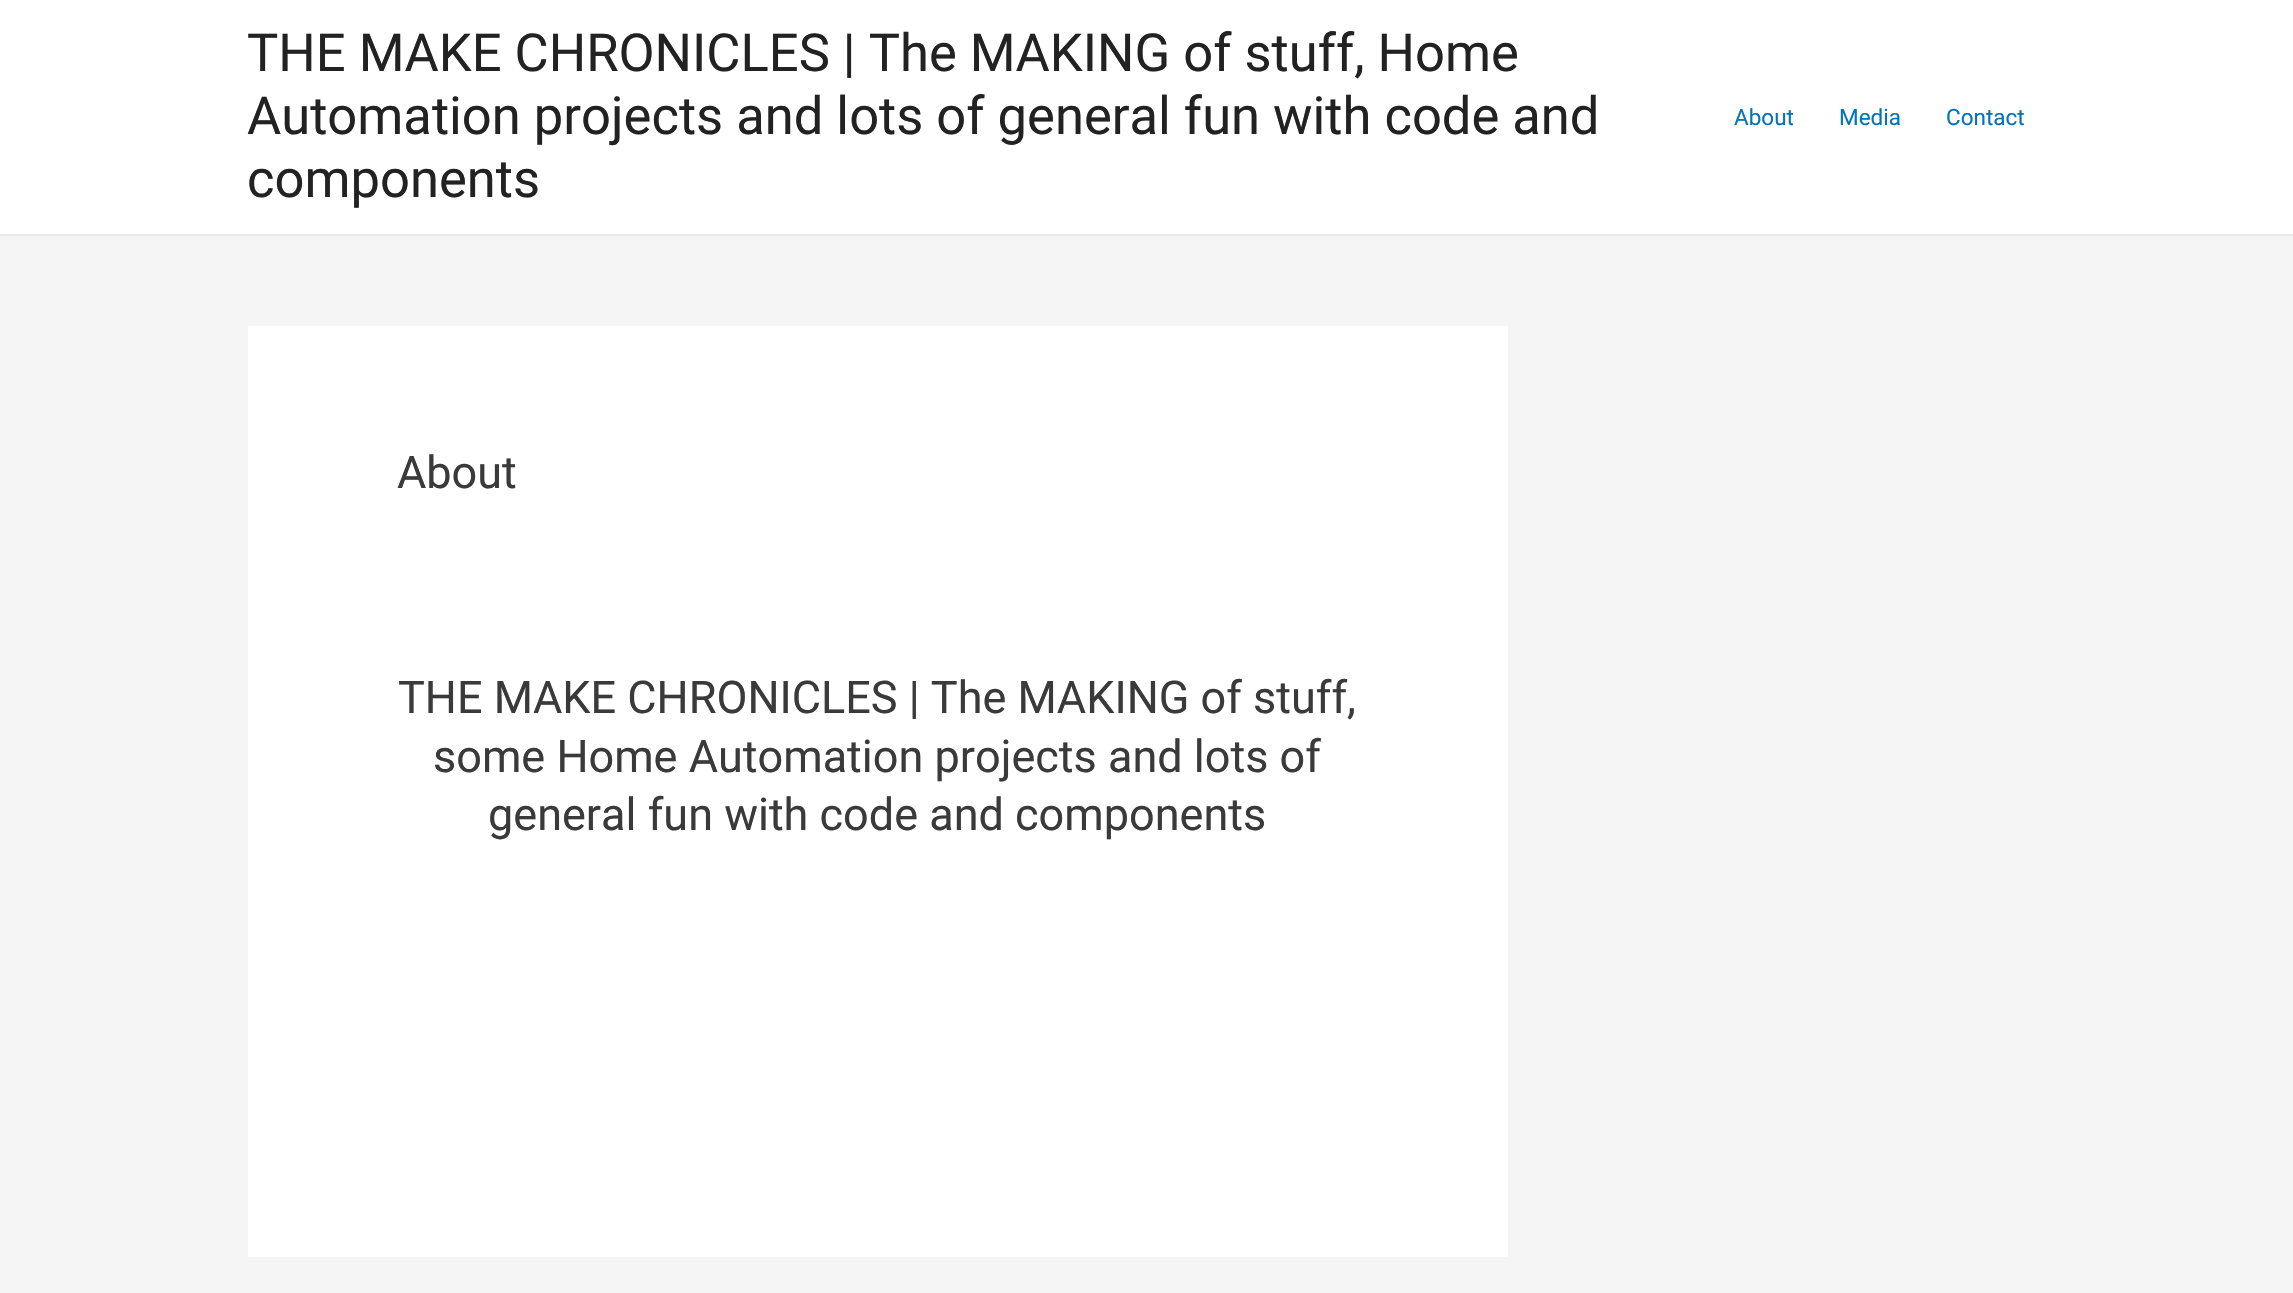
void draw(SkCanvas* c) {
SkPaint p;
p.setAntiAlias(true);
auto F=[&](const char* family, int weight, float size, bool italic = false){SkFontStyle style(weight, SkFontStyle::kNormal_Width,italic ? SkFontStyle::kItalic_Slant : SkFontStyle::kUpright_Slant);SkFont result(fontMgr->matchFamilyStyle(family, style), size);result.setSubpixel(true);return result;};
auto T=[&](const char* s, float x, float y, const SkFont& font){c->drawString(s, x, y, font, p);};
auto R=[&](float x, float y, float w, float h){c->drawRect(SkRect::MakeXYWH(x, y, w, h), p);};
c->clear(0xfff5f5f5);
p.setColor(0xffffffff);
R(0,0,2293,234);
p.setColor(0xffeaeaea);
R(0,234,2293,2);
auto f1 = F("Roboto",400,52.5);
p.setColor(0xff222222);
T("THE MAKE CHRONICLES | The MAKING of stuff, Home",247,71,f1);
T("Automation projects and lots of general fun with code and",247,134,f1);
T("components",247,197,f1);
auto f2 = F("Roboto",400,22.5);
p.setColor(0xff0274be);
T("About",1734,125,f2);
T("Media",1839,125,f2);
T("Contact",1946,125,f2);
p.setColor(0xffffffff);
R(248,326,1260,931);
auto f3 = F("Roboto",400,45);
p.setColor(0xff3a3a3a);
T("About",397,488,f3);
T("THE MAKE CHRONICLES | The MAKING of stuff,",398,713,f3);
T("some Home Automation projects and lots of",433,772,f3);
T("general fun with code and components",488,830,f3);
}
